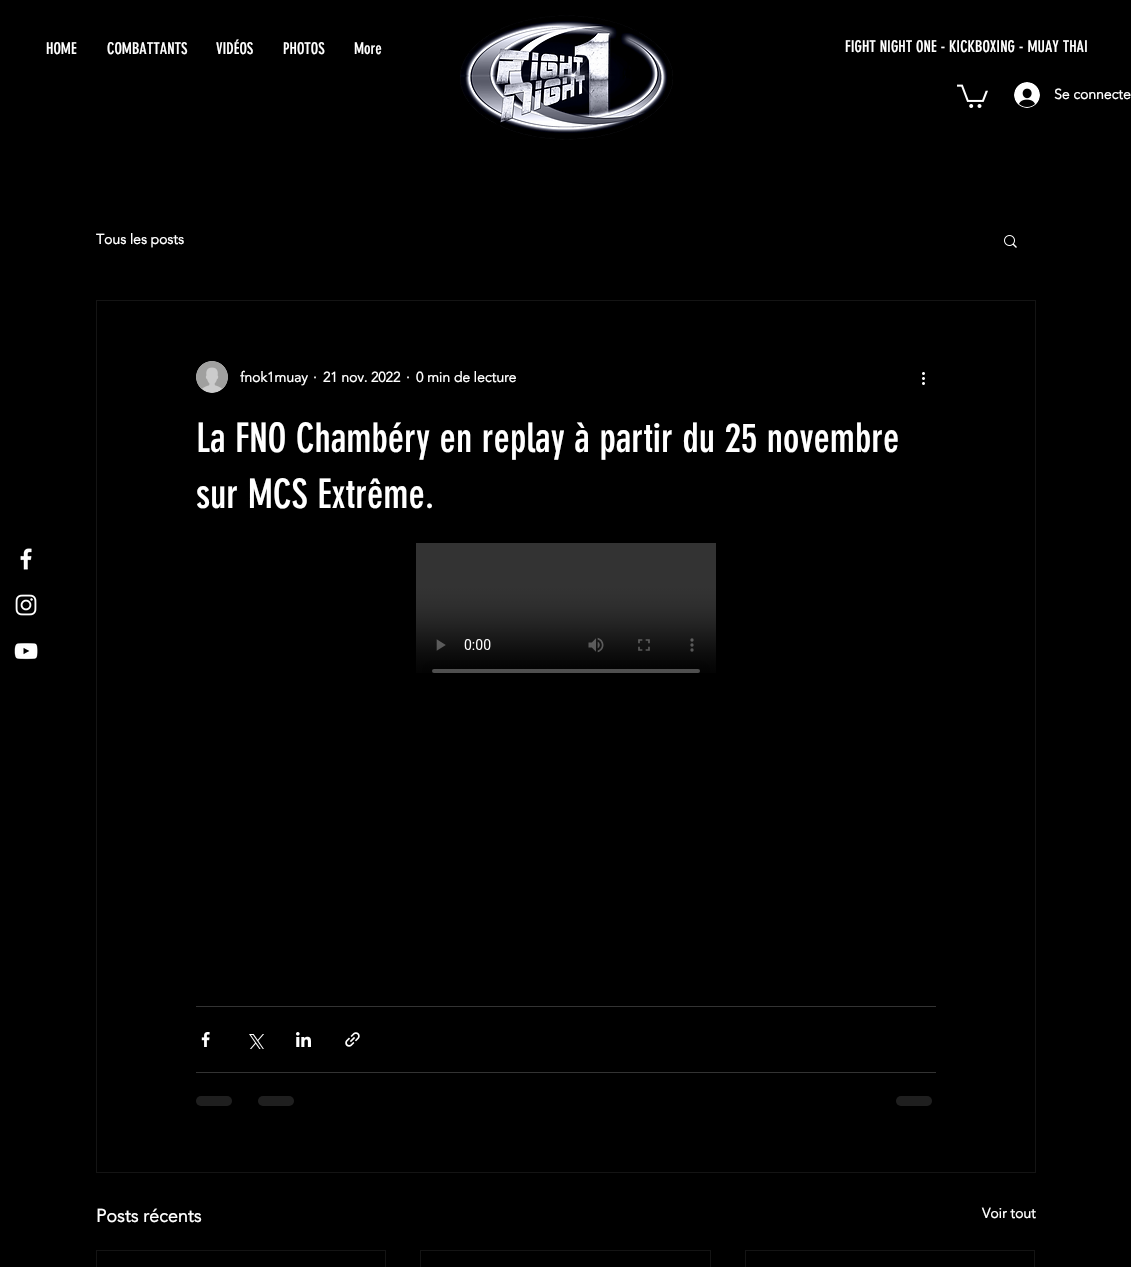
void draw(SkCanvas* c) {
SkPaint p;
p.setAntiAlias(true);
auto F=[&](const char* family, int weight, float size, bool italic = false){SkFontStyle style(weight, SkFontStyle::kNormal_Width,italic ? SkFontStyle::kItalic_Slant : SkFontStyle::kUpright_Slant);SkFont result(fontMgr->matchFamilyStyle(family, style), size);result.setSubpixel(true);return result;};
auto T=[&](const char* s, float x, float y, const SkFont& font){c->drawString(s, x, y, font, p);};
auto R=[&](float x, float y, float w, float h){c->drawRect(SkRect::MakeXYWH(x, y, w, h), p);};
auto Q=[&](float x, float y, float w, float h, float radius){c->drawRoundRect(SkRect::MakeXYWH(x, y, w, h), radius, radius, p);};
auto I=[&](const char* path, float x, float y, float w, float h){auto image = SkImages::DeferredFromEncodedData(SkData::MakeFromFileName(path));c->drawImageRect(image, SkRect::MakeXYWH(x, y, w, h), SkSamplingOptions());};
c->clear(0xff000000);
auto f1 = F("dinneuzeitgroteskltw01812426",400,16);
p.setColor(0xffffffff);
T("HOME",46,54,f1);
T("COMBATTANTS",107,54,f1);
T("VIDÉOS",216,54,f1);
T("PHOTOS",283,54,f1);
T("More",354,54,f1);
T("FIGHT NIGHT ONE - KICKBOXING - MUAY THAI",845,52,f1);
I("1.png",460,15,213,125);
I("2.png",957,84,31,24);
I("3.png",1014,82,26,26);
auto f2 = F("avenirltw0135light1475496",700,14);
T("Se connecte",1054,99,f2);
I("4.png",20,548,12,22);
I("5.png",15,594,22,22);
I("6.png",14,643,24,17);
T("Tous les posts",96,244,f2);
I("7.png",1004,235,13,13);
p.setStroke(true);
p.setStrokeWidth(1);
p.setColor(0xff141414);
c->drawRect(SkRect::MakeXYWH(96.5,300.5,939,872),p);
I("8.png",196,361,32,32);
p.setStroke(false);
p.setColor(0xffffffff);
T("fnok1muay",240,382,f2);
T("·",313,382,f2);
T("21 nov. 2022",323,382,f2);
T("·",406,382,f2);
T("0 min de lecture",416,382,f2);
I("9.png",922,372,3,13);
auto f3 = F("dinneuzeitgroteskltw01812426",400,40);
T("La FNO Chambéry en replay à partir du 25 novembre",196,452,f3);
T("sur MCS Extrême.",196,508,f3);
I("10.png",416,543,300,130);
p.setColor(0xff333333);
R(196,1006,740,1);
I("11.png",201,1032,9,15);
I("12.png",249,1034,15,15);
I("13.png",296,1032,15,15);
I("14.png",345,1032,15,15);
R(196,1072,740,1);
p.setColor(0xff1f1f1f);
Q(196,1096,36,10,5);
Q(258,1096,36,10,5);
Q(896,1096,36,10,5);
auto f4 = F("avenirltw0135light1475496",700,18);
p.setColor(0xffffffff);
T("Posts récents",96,1222,f4);
T("Voir tout",982,1218,f2);
p.setStroke(true);
p.setColor(0xff141414);
c->drawRect(SkRect::MakeXYWH(96.5,1250.5,289,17),p);
c->drawRect(SkRect::MakeXYWH(420.5,1250.5,290,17),p);
c->drawRect(SkRect::MakeXYWH(745.5,1250.5,289,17),p);
}
